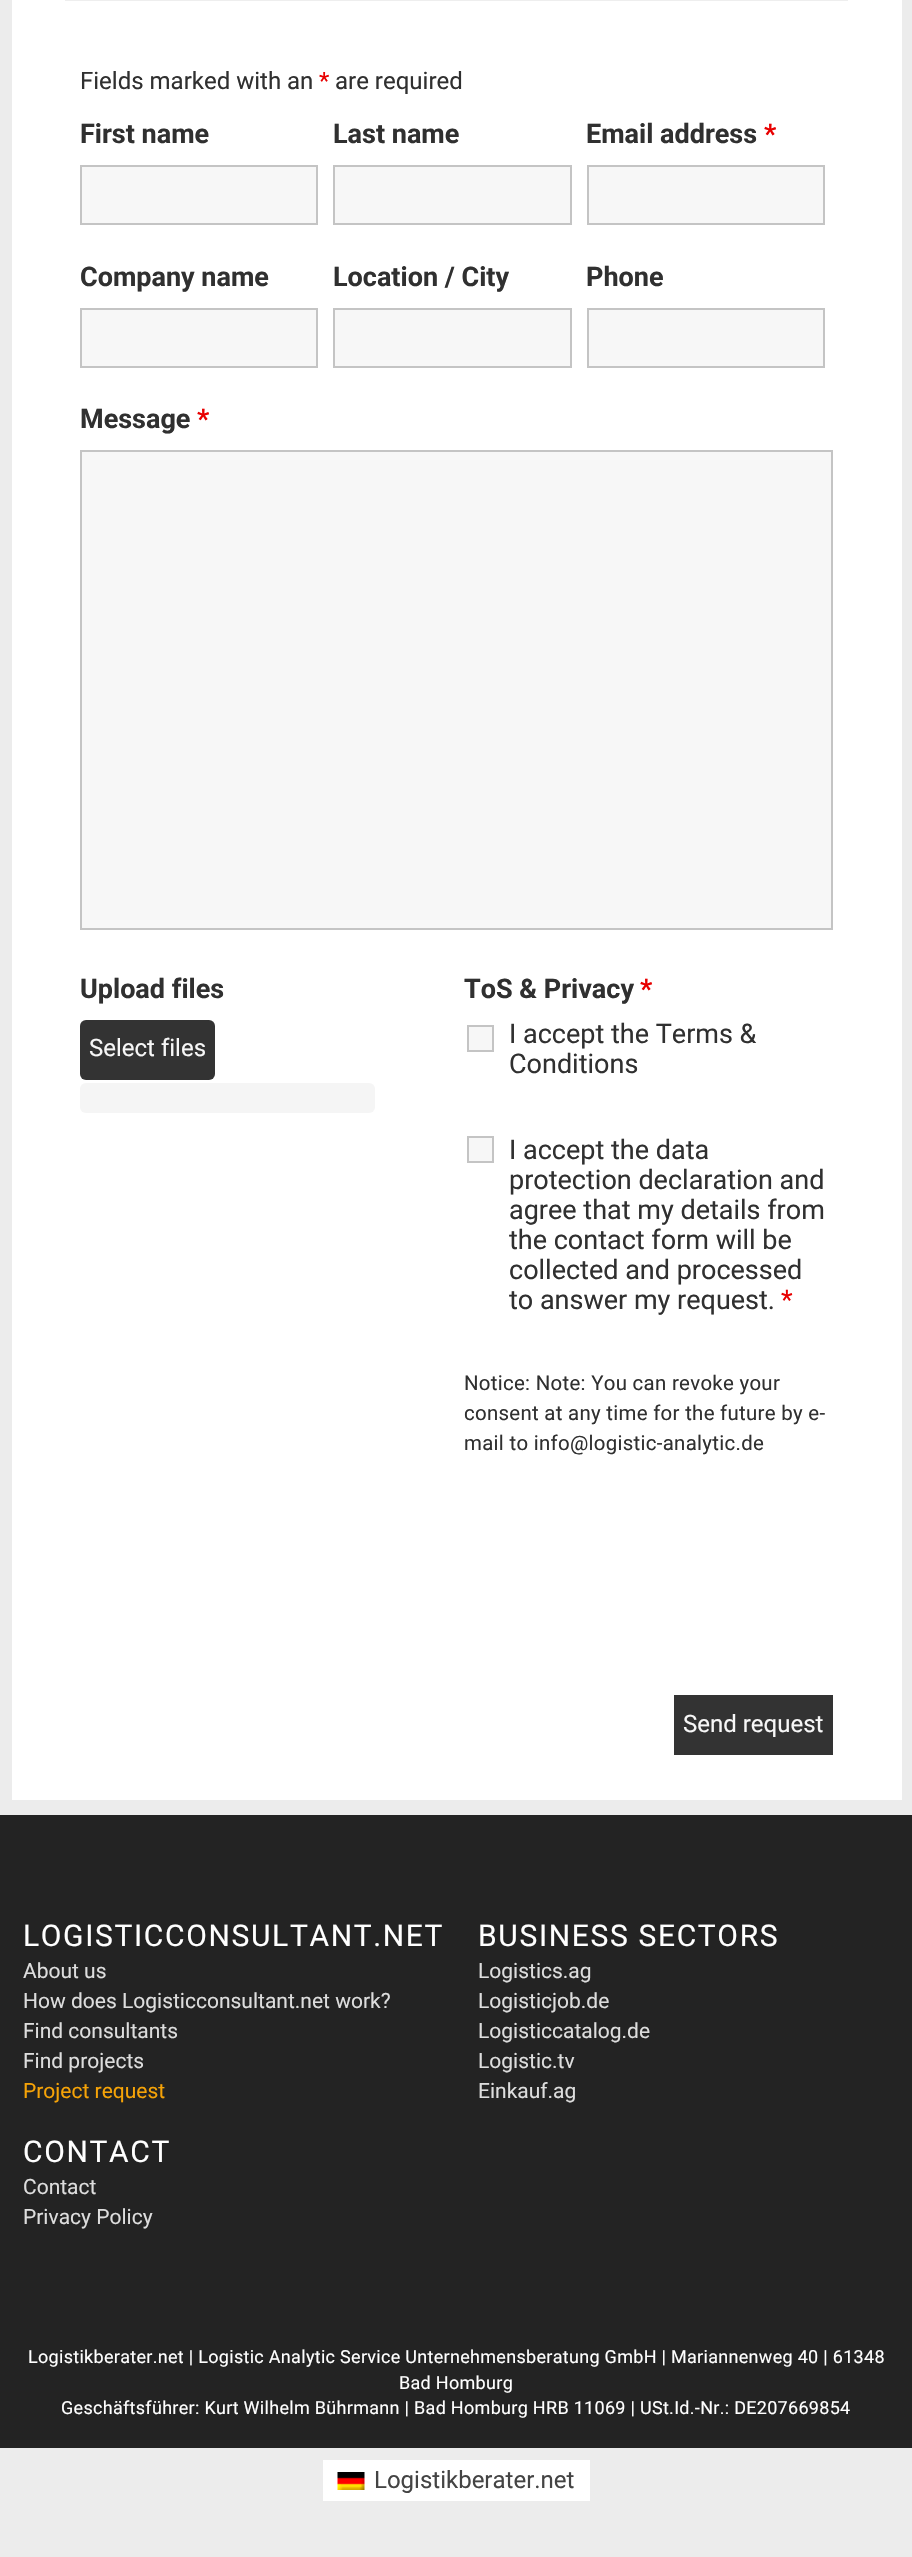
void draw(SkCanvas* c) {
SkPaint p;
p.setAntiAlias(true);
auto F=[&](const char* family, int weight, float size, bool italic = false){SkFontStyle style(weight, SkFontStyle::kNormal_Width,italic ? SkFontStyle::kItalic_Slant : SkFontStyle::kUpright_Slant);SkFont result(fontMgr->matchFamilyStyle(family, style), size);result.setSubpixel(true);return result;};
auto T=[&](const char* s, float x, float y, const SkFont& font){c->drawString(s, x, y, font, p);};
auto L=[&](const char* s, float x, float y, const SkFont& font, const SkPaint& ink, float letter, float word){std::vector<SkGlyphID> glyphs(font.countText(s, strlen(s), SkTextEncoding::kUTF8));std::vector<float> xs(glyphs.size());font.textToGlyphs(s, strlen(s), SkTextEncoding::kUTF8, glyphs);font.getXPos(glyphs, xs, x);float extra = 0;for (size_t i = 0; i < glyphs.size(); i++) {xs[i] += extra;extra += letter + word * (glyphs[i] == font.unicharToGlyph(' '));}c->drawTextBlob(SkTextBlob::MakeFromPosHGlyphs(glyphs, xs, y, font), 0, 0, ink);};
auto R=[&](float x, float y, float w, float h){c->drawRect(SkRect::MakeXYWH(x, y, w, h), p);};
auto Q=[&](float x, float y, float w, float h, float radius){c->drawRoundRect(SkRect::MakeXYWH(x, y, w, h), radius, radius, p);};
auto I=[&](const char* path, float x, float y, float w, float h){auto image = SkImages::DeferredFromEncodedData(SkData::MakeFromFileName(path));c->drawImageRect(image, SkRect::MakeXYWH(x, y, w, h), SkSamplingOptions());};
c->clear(0xffececec);
p.setColor(0xffffffff);
R(12,0,890,1800);
p.setColor(0xffeeeeee);
R(65,0,783,1);
auto f1 = F("Roboto",400,24);
p.setColor(0xff303030);
T("Fields marked with an",80,89,f1);
p.setColor(0xffe80000);
T("*",319,89,f1);
p.setColor(0xff303030);
T("are required",335,89,f1);
auto f2 = F("Roboto",700,27);
T("First name",80,143,f2);
p.setColor(0xfff7f7f7);
c->drawRect(SkRect::MakeXYWH(81,166,236,58),p);
p.setStroke(true);
p.setStrokeWidth(2);
p.setColor(0xffc4c4c4);
c->drawRect(SkRect::MakeXYWH(81,166,236,58),p);
p.setStroke(false);
p.setColor(0xff303030);
T("Last name",333,143,f2);
p.setColor(0xfff7f7f7);
c->drawRect(SkRect::MakeXYWH(334,166,237,58),p);
p.setStroke(true);
p.setColor(0xffc4c4c4);
c->drawRect(SkRect::MakeXYWH(334,166,237,58),p);
p.setStroke(false);
p.setColor(0xff303030);
T("Email address",586,143,f2);
p.setColor(0xffe80000);
T("*",764,143,f2);
p.setColor(0xfff7f7f7);
c->drawRect(SkRect::MakeXYWH(588,166,236,58),p);
p.setStroke(true);
p.setColor(0xffc4c4c4);
c->drawRect(SkRect::MakeXYWH(588,166,236,58),p);
p.setStroke(false);
p.setColor(0xff303030);
T("Company name",80,286,f2);
p.setColor(0xfff7f7f7);
c->drawRect(SkRect::MakeXYWH(81,309,236,58),p);
p.setStroke(true);
p.setColor(0xffc4c4c4);
c->drawRect(SkRect::MakeXYWH(81,309,236,58),p);
p.setStroke(false);
p.setColor(0xff303030);
T("Location / City",333,286,f2);
p.setColor(0xfff7f7f7);
c->drawRect(SkRect::MakeXYWH(334,309,237,58),p);
p.setStroke(true);
p.setColor(0xffc4c4c4);
c->drawRect(SkRect::MakeXYWH(334,309,237,58),p);
p.setStroke(false);
p.setColor(0xff303030);
T("Phone",586,286,f2);
p.setColor(0xfff7f7f7);
c->drawRect(SkRect::MakeXYWH(588,309,236,58),p);
p.setStroke(true);
p.setColor(0xffc4c4c4);
c->drawRect(SkRect::MakeXYWH(588,309,236,58),p);
p.setStroke(false);
p.setColor(0xff303030);
T("Message",80,428,f2);
p.setColor(0xffe80000);
T("*",197,428,f2);
p.setColor(0xfff7f7f7);
c->drawRect(SkRect::MakeXYWH(81,451,751,478),p);
p.setStroke(true);
p.setColor(0xffc4c4c4);
c->drawRect(SkRect::MakeXYWH(81,451,751,478),p);
p.setStroke(false);
p.setColor(0xff303030);
T("Upload files",80,998,f2);
p.setColor(0xff333333);
Q(80,1020,135,60,6);
p.setColor(0xfff7f7f7);
T("Select files",89,1056,f1);
p.setColor(0xfff5f5f5);
Q(80,1083,295,30,6);
p.setColor(0xff303030);
T("ToS & Privacy",464,998,f2);
p.setColor(0xffe80000);
T("*",640,998,f2);
p.setColor(0xfff7f7f7);
c->drawRect(SkRect::MakeXYWH(468,1026,25,25),p);
p.setStroke(true);
p.setColor(0xffc4c4c4);
c->drawRect(SkRect::MakeXYWH(468,1026,25,25),p);
auto f3 = F("Roboto",400,27);
p.setStroke(false);
p.setColor(0xff303030);
T("I accept the Terms &",509,1043,f3);
T("Conditions",509,1073,f3);
p.setColor(0xfff7f7f7);
c->drawRect(SkRect::MakeXYWH(468,1137,25,25),p);
p.setStroke(true);
p.setColor(0xffc4c4c4);
c->drawRect(SkRect::MakeXYWH(468,1137,25,25),p);
p.setStroke(false);
p.setColor(0xff303030);
T("I accept the data",509,1159,f3);
T("protection declaration and",509,1189,f3);
T("agree that my details from",509,1219,f3);
T("the contact form will be",509,1249,f3);
T("collected and processed",509,1279,f3);
T("to answer my request.",509,1309,f3);
p.setColor(0xffe80000);
T("*",781,1309,f3);
auto f4 = F("Roboto",400,20.4);
p.setColor(0xff303030);
L("Notice: Note: You can revoke your",464,1390,f4,p,.3,0);
L("consent at any time for the future by e-",464,1420,f4,p,.3,0);
L("mail to info@logistic-analytic.de",464,1450,f4,p,.3,0);
p.setColor(0xff333333);
R(674,1695,159,60);
p.setColor(0xfff7f7f7);
T("Send request",683,1732,f1);
p.setColor(0xff232323);
R(0,1815,912,633);
auto f5 = F("Roboto",400,30);
p.setColor(0xffffffff);
L("LOGISTICCONSULTANT.NET",23,1946,f5,p,1.65,0);
auto f6 = F("Roboto",400,21);
p.setColor(0xffdddddd);
T("About us",23,1978,f6);
T("How does Logisticconsultant.net work?",23,2008,f6);
T("Find consultants",23,2038,f6);
T("Find projects",23,2068,f6);
p.setColor(0xfff6a307);
T("Project request",23,2098,f6);
p.setColor(0xffffffff);
L("BUSINESS SECTORS",478,1946,f5,p,1.65,0);
p.setColor(0xffdddddd);
T("Logistics.ag",478,1978,f6);
T("Logisticjob.de",478,2008,f6);
T("Logisticcatalog.de",478,2038,f6);
T("Logistic.tv",478,2068,f6);
T("Einkauf.ag",478,2098,f6);
p.setColor(0xffffffff);
L("CONTACT",23,2162,f5,p,1.65,0);
p.setColor(0xffdddddd);
T("Contact",23,2194,f6);
T("Privacy Policy",23,2224,f6);
auto f7 = F("Roboto",400,18);
p.setColor(0xffffffff);
L("Logistikberater.net | Logistic Analytic Service Unternehmensberatung GmbH | Mariannenweg 40 | 61348",28,2363,f7,p,.3,0);
L("Bad Homburg",399,2389,f7,p,.3,0);
L("Geschäftsführer: Kurt Wilhelm Bührmann | Bad Homburg HRB 11069 | USt.Id.-Nr.: DE207669854",61,2414,f7,p,.3,0);
R(323,2460,267,41);
I("1.png",337,2472,28,18);
p.setColor(0xff444444);
T("Logistikberater.net",374,2488,f1);
}
